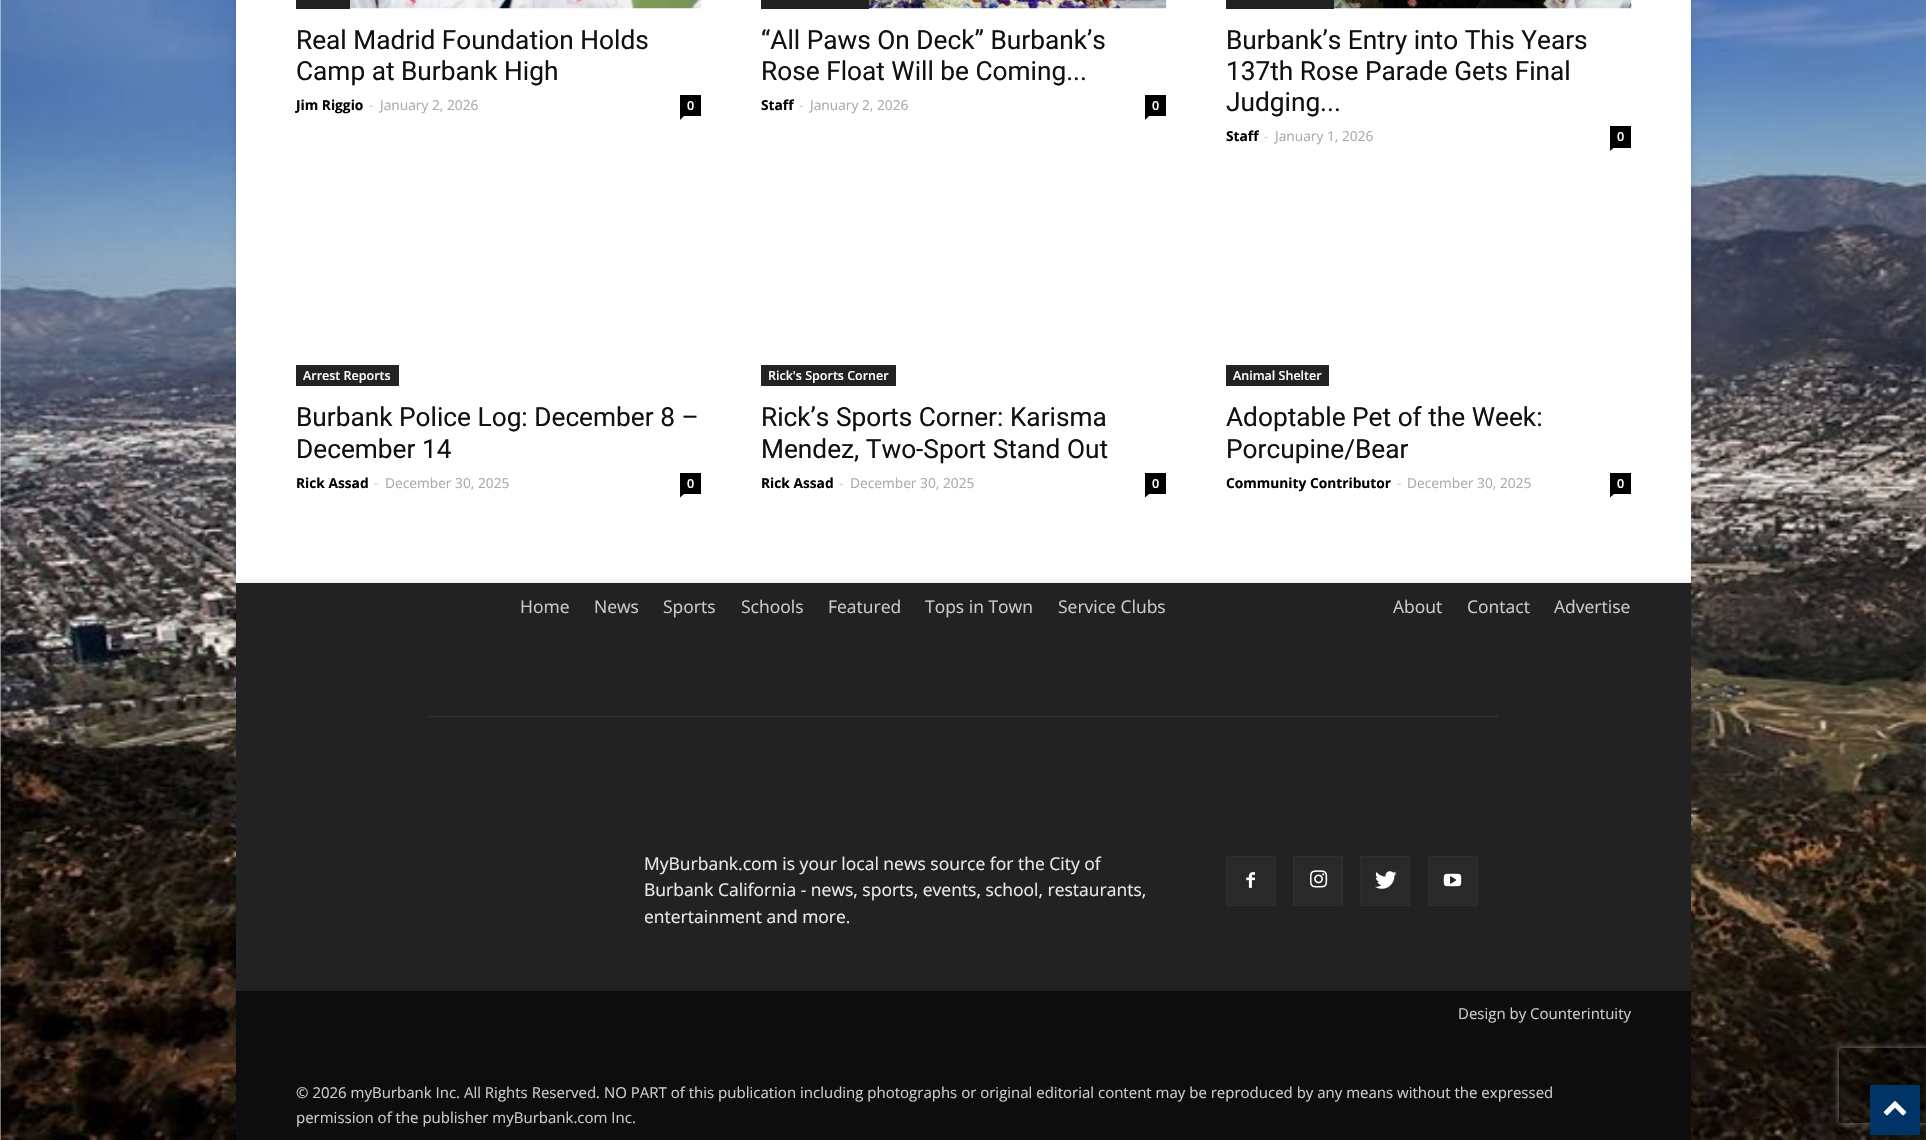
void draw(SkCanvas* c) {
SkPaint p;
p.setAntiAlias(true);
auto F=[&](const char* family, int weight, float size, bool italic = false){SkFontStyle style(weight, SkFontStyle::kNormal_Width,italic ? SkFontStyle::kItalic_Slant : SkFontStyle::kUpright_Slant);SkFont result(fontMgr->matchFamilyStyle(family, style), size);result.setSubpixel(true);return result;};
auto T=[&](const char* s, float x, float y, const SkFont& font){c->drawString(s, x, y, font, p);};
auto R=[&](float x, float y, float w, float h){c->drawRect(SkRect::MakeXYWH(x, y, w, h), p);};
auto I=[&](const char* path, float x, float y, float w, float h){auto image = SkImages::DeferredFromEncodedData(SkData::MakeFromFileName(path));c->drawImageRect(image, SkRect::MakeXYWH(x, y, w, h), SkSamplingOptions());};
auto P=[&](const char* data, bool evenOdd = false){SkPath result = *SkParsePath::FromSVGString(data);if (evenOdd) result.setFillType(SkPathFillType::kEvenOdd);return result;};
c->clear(0xffffffff);
I("1.png",0,0,1926,1140);
p.setColor(0x1f000000);
p.setMaskFilter(SkMaskFilter::MakeBlur(kNormal_SkBlurStyle, 3));
c->drawRect(SkRect::MakeXYWH(236,-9,1455,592),p);
p.setMaskFilter(nullptr);
p.setColor(0xffffffff);
R(236,0,1455,583);
p.setColor(0xff222222);
R(296,0,54,9);
I("2.png",350,0,352,9);
auto f1 = F("Roboto",400,26.25);
p.setColor(0xff111111);
T("Real Madrid Foundation Holds",296,49,f1);
T("Camp at Burbank High",296,80,f1);
auto f2 = F("Open Sans",700,13.75);
p.setColor(0xff000000);
T("Jim Riggio",296,110,f2);
auto f3 = F("Open Sans",400,13.75);
p.setColor(0xffcccccc);
T("-",369,110,f3);
p.setColor(0xffaaaaaa);
T("January 2, 2026",380,110,f3);
p.setColor(0xff000000);
R(680,95,21,21);
auto f4 = F("Open Sans",600,12.5);
p.setColor(0xffffffff);
T("0",687,110,f4);
p.setColor(0xff000000);
c->drawPath(P("M680 116h4l-4 4z"),p);
p.setColor(0xff222222);
R(761,0,108,9);
I("3.png",869,0,298,9);
p.setColor(0xff111111);
T("“All Paws On Deck” Burbank’s",761,49,f1);
T("Rose Float Will be Coming...",761,80,f1);
p.setColor(0xff000000);
T("Staff",761,110,f2);
p.setColor(0xffcccccc);
T("-",799,110,f3);
p.setColor(0xffaaaaaa);
T("January 2, 2026",810,110,f3);
p.setColor(0xff000000);
R(1145,95,21,21);
p.setColor(0xffffffff);
T("0",1152,110,f4);
p.setColor(0xff000000);
c->drawPath(P("M1145 116h4l-4 4z"),p);
p.setColor(0xff222222);
R(1226,0,108,9);
I("4.png",1334,0,298,9);
p.setColor(0xff111111);
T("Burbank’s Entry into This Years",1226,49,f1);
T("137th Rose Parade Gets Final",1226,80,f1);
T("Judging...",1226,111,f1);
p.setColor(0xff000000);
T("Staff",1226,141,f2);
p.setColor(0xffcccccc);
T("-",1264,141,f3);
p.setColor(0xffaaaaaa);
T("January 1, 2026",1275,141,f3);
p.setColor(0xff000000);
R(1610,126,21,22);
p.setColor(0xffffffff);
T("0",1617,141,f4);
p.setColor(0xff000000);
c->drawPath(P("M1610 147.5h4l-4 3.5z"),p);
p.setColor(0xff222222);
R(296,365,103,21);
p.setColor(0xffffffff);
T("Arrest Reports",303,380,f4);
p.setColor(0xff111111);
T("Burbank Police Log: December 8 –",296,426,f1);
T("December 14",296,458,f1);
p.setColor(0xff000000);
T("Rick Assad",296,488,f2);
p.setColor(0xffcccccc);
T("-",374,488,f3);
p.setColor(0xffaaaaaa);
T("December 30, 2025",385,488,f3);
p.setColor(0xff000000);
R(680,473,21,21);
p.setColor(0xffffffff);
T("0",687,488,f4);
p.setColor(0xff000000);
c->drawPath(P("M680 494h4l-4 3.5z"),p);
p.setColor(0xff222222);
R(761,365,135,21);
p.setColor(0xffffffff);
T("Rick's Sports Corner",768,380,f4);
p.setColor(0xff111111);
T("Rick’s Sports Corner: Karisma",761,426,f1);
T("Mendez, Two-Sport Stand Out",761,458,f1);
p.setColor(0xff000000);
T("Rick Assad",761,488,f2);
p.setColor(0xffcccccc);
T("-",839,488,f3);
p.setColor(0xffaaaaaa);
T("December 30, 2025",850,488,f3);
p.setColor(0xff000000);
R(1145,473,21,21);
p.setColor(0xffffffff);
T("0",1152,488,f4);
p.setColor(0xff000000);
c->drawPath(P("M1145 494h4l-4 3.5z"),p);
p.setColor(0xff222222);
R(1226,365,103,21);
p.setColor(0xffffffff);
T("Animal Shelter",1233,380,f4);
p.setColor(0xff111111);
T("Adoptable Pet of the Week:",1226,426,f1);
T("Porcupine/Bear",1226,458,f1);
p.setColor(0xff000000);
T("Community Contributor",1226,488,f2);
p.setColor(0xffcccccc);
T("-",1397,488,f3);
p.setColor(0xffaaaaaa);
T("December 30, 2025",1407,488,f3);
p.setColor(0xff000000);
R(1610,473,21,21);
p.setColor(0xffffffff);
T("0",1617,488,f4);
p.setColor(0xff000000);
c->drawPath(P("M1610 494h4l-4 3.5z"),p);
p.setColor(0x1f000000);
p.setMaskFilter(SkMaskFilter::MakeBlur(kNormal_SkBlurStyle, 3));
c->drawRect(SkRect::MakeXYWH(236,991,1455,149),p);
p.setMaskFilter(nullptr);
p.setColor(0xff0d0d0d);
R(236,991,1455,149);
p.setColor(0x1f000000);
p.setMaskFilter(SkMaskFilter::MakeBlur(kNormal_SkBlurStyle, 3));
c->drawRect(SkRect::MakeXYWH(236,583,1455,408),p);
p.setMaskFilter(nullptr);
p.setColor(0xff222222);
R(236,583,1455,408);
auto f5 = F("Open Sans",400,17.5);
p.setColor(0xffcccccc);
T("Home",520,613,f5);
T("News",594,613,f5);
T("Sports",663,613,f5);
T("Schools",741,613,f5);
T("Featured",828,613,f5);
T("Tops in Town",925,613,f5);
T("Service Clubs",1058,613,f5);
T("About",1393,613,f5);
T("Contact",1467,613,f5);
T("Advertise",1554,613,f5);
p.setColor(0xff383838);
R(429,716,1069,1);
p.setColor(0xffeaeaea);
T("MyBurbank.com is your local news source for the City of",644,870,f5);
T("Burbank California - news, sports, events, school, restaurants,",644,896,f5);
T("entertainment and more.",644,923,f5);
p.setColor(0xff292929);
R(1227,857,48,48);
I("5.png",1246,872,9,16);
p.setStroke(true);
p.setStrokeWidth(1);
p.setColor(0xff2f2f2f);
c->drawRect(SkRect::MakeXYWH(1226.5,856.5,49,49),p);
p.setStroke(false);
p.setColor(0xff292929);
R(1294,857,48,48);
I("6.png",1310,870,18,18);
p.setStroke(true);
p.setColor(0xff2f2f2f);
c->drawRect(SkRect::MakeXYWH(1293.5,856.5,49,49),p);
p.setStroke(false);
p.setColor(0xff292929);
R(1361,857,48,48);
I("7.png",1375,871,22,18);
p.setStroke(true);
p.setColor(0xff2f2f2f);
c->drawRect(SkRect::MakeXYWH(1360.5,856.5,49,49),p);
p.setStroke(false);
p.setColor(0xff292929);
R(1429,857,48,48);
I("8.png",1443,873,19,14);
p.setStroke(true);
p.setColor(0xff2f2f2f);
c->drawRect(SkRect::MakeXYWH(1428.5,856.5,49,49),p);
auto f6 = F("Open Sans",400,15);
p.setStroke(false);
p.setColor(0xffcccccc);
T("Design by Counterintuity",1458,1019,f6);
T("© 2026 myBurbank Inc. All Rights Reserved. NO PART of this publication including photographs or original editorial content may be reproduced by any means without the expressed",296,1098,f6);
T("permission of the publisher myBurbank.com Inc.",296,1123,f6);
c->save();
c->clipPath(P("M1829 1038h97v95h-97zm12.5 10h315c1.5 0 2.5 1 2.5 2.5v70c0 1.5-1 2.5-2.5 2.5h-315c-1.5 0-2.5-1-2.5-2.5v-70c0-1.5 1-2.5 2.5-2.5z",true),true);
p.setColor(0xff808080);
p.setMaskFilter(SkMaskFilter::MakeBlur(kNormal_SkBlurStyle, 3));
c->drawRoundRect(SkRect::MakeXYWH(1839,1048,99,75),2.5,2.5,p);
p.setMaskFilter(nullptr);
c->restore();
p.setColor(0xff003366);
R(1870,1085,50,50);
I("9.png",1883,1101,24,15);
}
